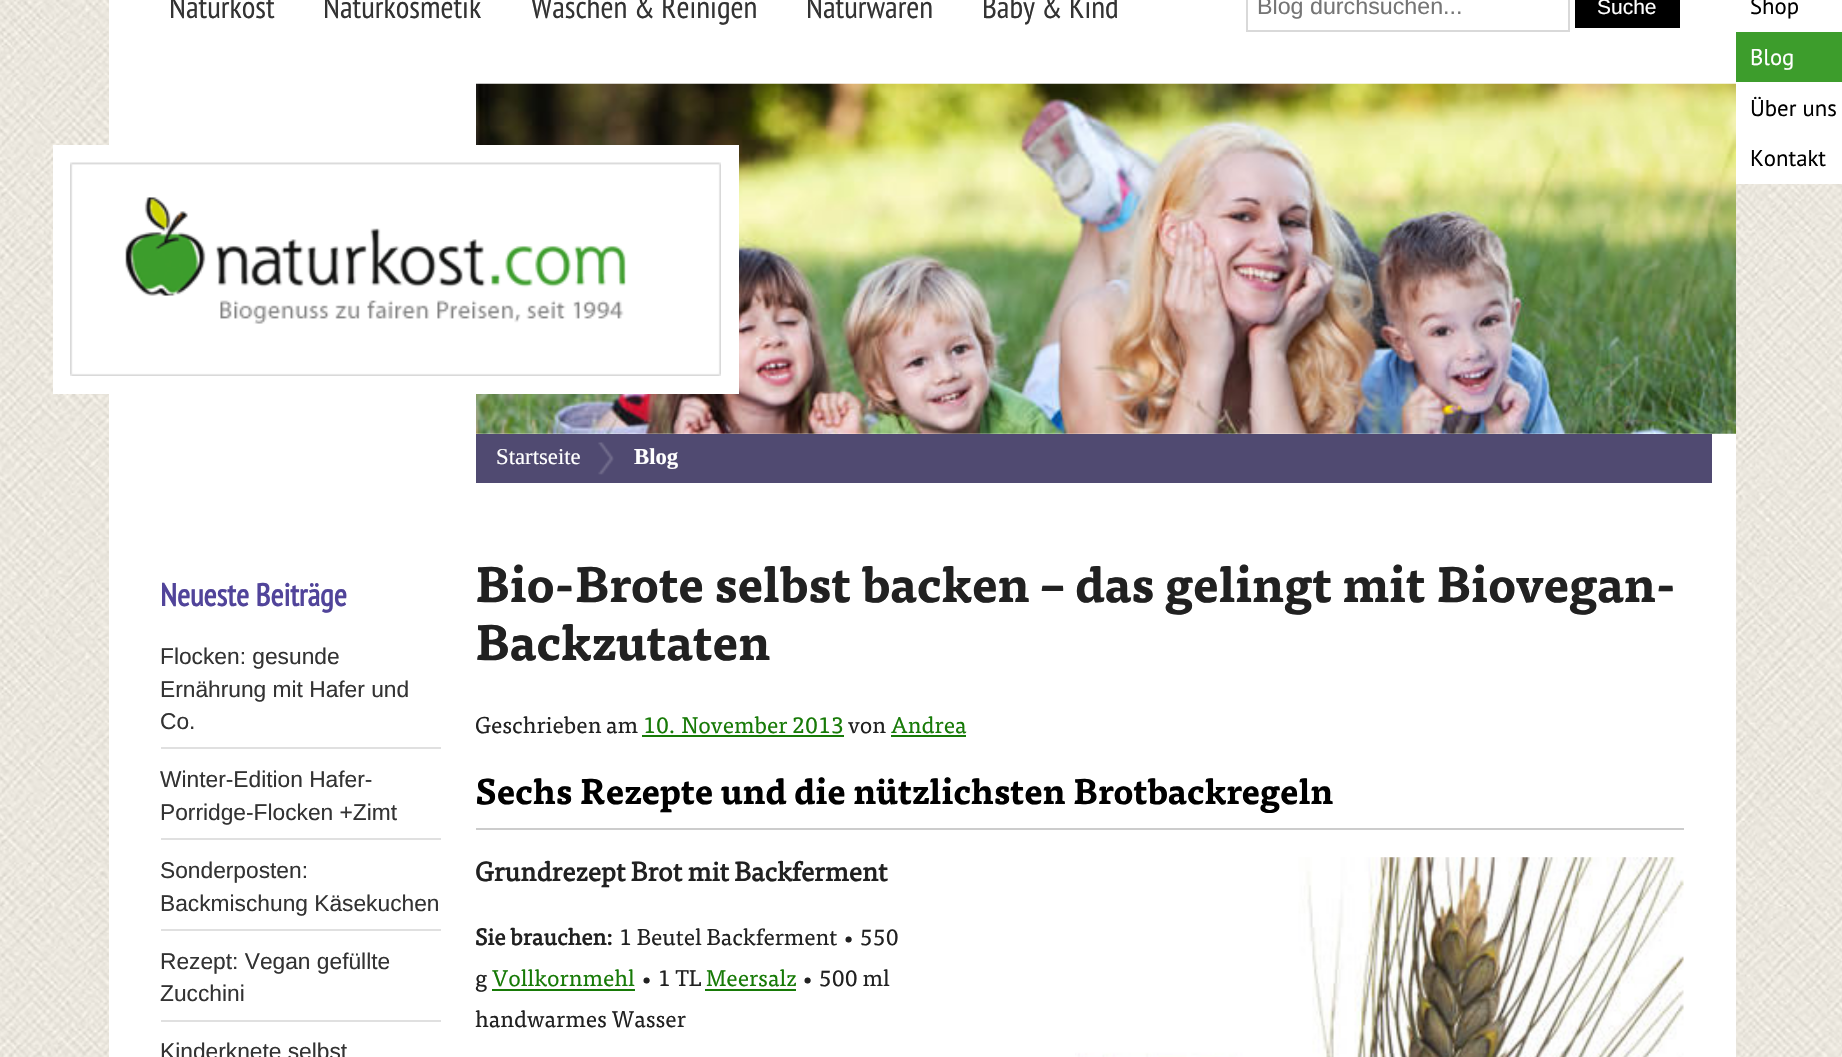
void draw(SkCanvas* c) {
SkPaint p;
p.setAntiAlias(true);
auto F=[&](const char* family, int weight, float size, bool italic = false){SkFontStyle style(weight, SkFontStyle::kNormal_Width,italic ? SkFontStyle::kItalic_Slant : SkFontStyle::kUpright_Slant);SkFont result(fontMgr->matchFamilyStyle(family, style), size);result.setSubpixel(true);return result;};
auto T=[&](const char* s, float x, float y, const SkFont& font){c->drawString(s, x, y, font, p);};
auto R=[&](float x, float y, float w, float h){c->drawRect(SkRect::MakeXYWH(x, y, w, h), p);};
auto I=[&](const char* path, float x, float y, float w, float h){auto image = SkImages::DeferredFromEncodedData(SkData::MakeFromFileName(path));c->drawImageRect(image, SkRect::MakeXYWH(x, y, w, h), SkSamplingOptions());};
c->clear(0xffffffff);
I("1.png",0,0,1842,1057);
p.setColor(0xffffffff);
R(109,0,1627,1057);
auto f1 = F("PT Sans Narrow",400,31.5);
p.setColor(0xff333333);
T("Naturkost",169,18,f1);
T("Naturkosmetik",323,18,f1);
T("Waschen & Reinigen",531,18,f1);
T("Naturwaren",806,18,f1);
T("Baby & Kind",982,18,f1);
p.setStroke(true);
p.setStrokeWidth(2);
p.setColor(0xffd9d9d9);
c->drawRect(SkRect::MakeXYWH(1247,-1,322,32),p);
auto f2 = F("Liberation Sans",400,23.25);
p.setStroke(false);
p.setColor(0xff757575);
T("Blog durchsuchen...",1257,14,f2);
p.setColor(0xff000000);
R(1575,0,105,28);
auto f3 = F("Liberation Sans",400,21);
p.setColor(0xffffffff);
T("Suche",1597,14,f3);
R(1736,0,106,32);
auto f4 = F("PT Sans",400,22.75);
p.setColor(0xff000000);
T("Shop",1750,14,f4);
p.setColor(0xff3d9d2c);
R(1736,32,106,50);
p.setColor(0xffffffff);
T("Blog",1750,65,f4);
R(1736,82,106,102);
p.setColor(0xff000000);
T("Über uns",1750,116,f4);
T("Kontakt",1750,166,f4);
I("3.png",476,83,1260,351);
p.setColor(0xffffffff);
R(53,145,686,249);
I("2.png",70,162,651,214);
p.setColor(0xff504a71);
R(476,434,1236,49);
auto f5 = F("Liberation Serif",400,22.75);
p.setColor(0xffffffff);
T("Startseite",496,464,f5);
I("4.png",598,442,16,33);
auto f6 = F("Liberation Serif",700,22.75);
T("Blog",634,464,f6);
auto f7 = F("PT Sans Narrow",700,31.5);
p.setColor(0xff51449a);
T("Neueste Beiträge",160,606,f7);
p.setColor(0xffe0e0e0);
R(161,747,280,2);
auto f8 = F("Liberation Sans",400,22.75);
p.setColor(0xff333333);
T("Flocken: gesunde",160,664,f8);
T("Ernährung mit Hafer und",160,697,f8);
T("Co.",160,729,f8);
p.setColor(0xffe0e0e0);
R(161,838,280,2);
p.setColor(0xff333333);
T("Winter-Edition Hafer-",160,787,f8);
T("Porridge-Flocken +Zimt",160,820,f8);
p.setColor(0xffe0e0e0);
R(161,929,280,2);
p.setColor(0xff333333);
T("Sonderposten:",160,878,f8);
T("Backmischung Käsekuchen",160,911,f8);
p.setColor(0xffe0e0e0);
R(161,1020,280,2);
p.setColor(0xff333333);
T("Rezept: Vegan gefüllte",160,969,f8);
T("Zucchini",160,1001,f8);
T("Kinderknete selbst",160,1059,f8);
auto f9 = F("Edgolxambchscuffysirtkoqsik",700,49);
p.setColor(0xff212121);
T("Bio-Brote selbst backen – das gelingt mit Biovegan-",475,602,f9);
T("Backzutaten",475,660,f9);
auto f10 = F("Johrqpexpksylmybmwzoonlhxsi",400,22.75);
T("Geschrieben am",475,733,f10);
p.setColor(0xff177a07);
T("10. November 2013",643,733,f10);
R(642,735,202,2);
p.setColor(0xff212121);
T("von",848,733,f10);
p.setColor(0xff177a07);
T("Andrea",891,733,f10);
R(891,735,75,2);
p.setColor(0xffcccccc);
R(476,828,1208,2);
auto f11 = F("Edgolxambchscuffysirtkoqsik",700,35);
p.setColor(0xff000000);
T("Sechs Rezepte und die nützlichsten Brotbackregeln",475,804,f11);
auto f12 = F("Johrqpexpksylmybmwzoonlhxsi",700,26.6);
p.setColor(0xff212121);
T("Grundrezept Brot mit Backferment",475,881,f12);
I("5.png",1075,857,609,200);
auto f13 = F("Johrqpexpksylmybmwzoonlhxsi",700,22.75);
T("Sie brauchen:",475,945,f13);
T("1 Beutel Backferment • 550",619,945,f10);
T("g",475,986,f10);
p.setColor(0xff177a07);
T("Vollkornmehl",492,986,f10);
R(492,989,143,2);
p.setColor(0xff212121);
T("• 1 TL",640,986,f10);
p.setColor(0xff177a07);
T("Meersalz",706,986,f10);
R(705,989,91,2);
p.setColor(0xff212121);
T("• 500 ml",801,986,f10);
T("handwarmes Wasser",475,1027,f10);
}
